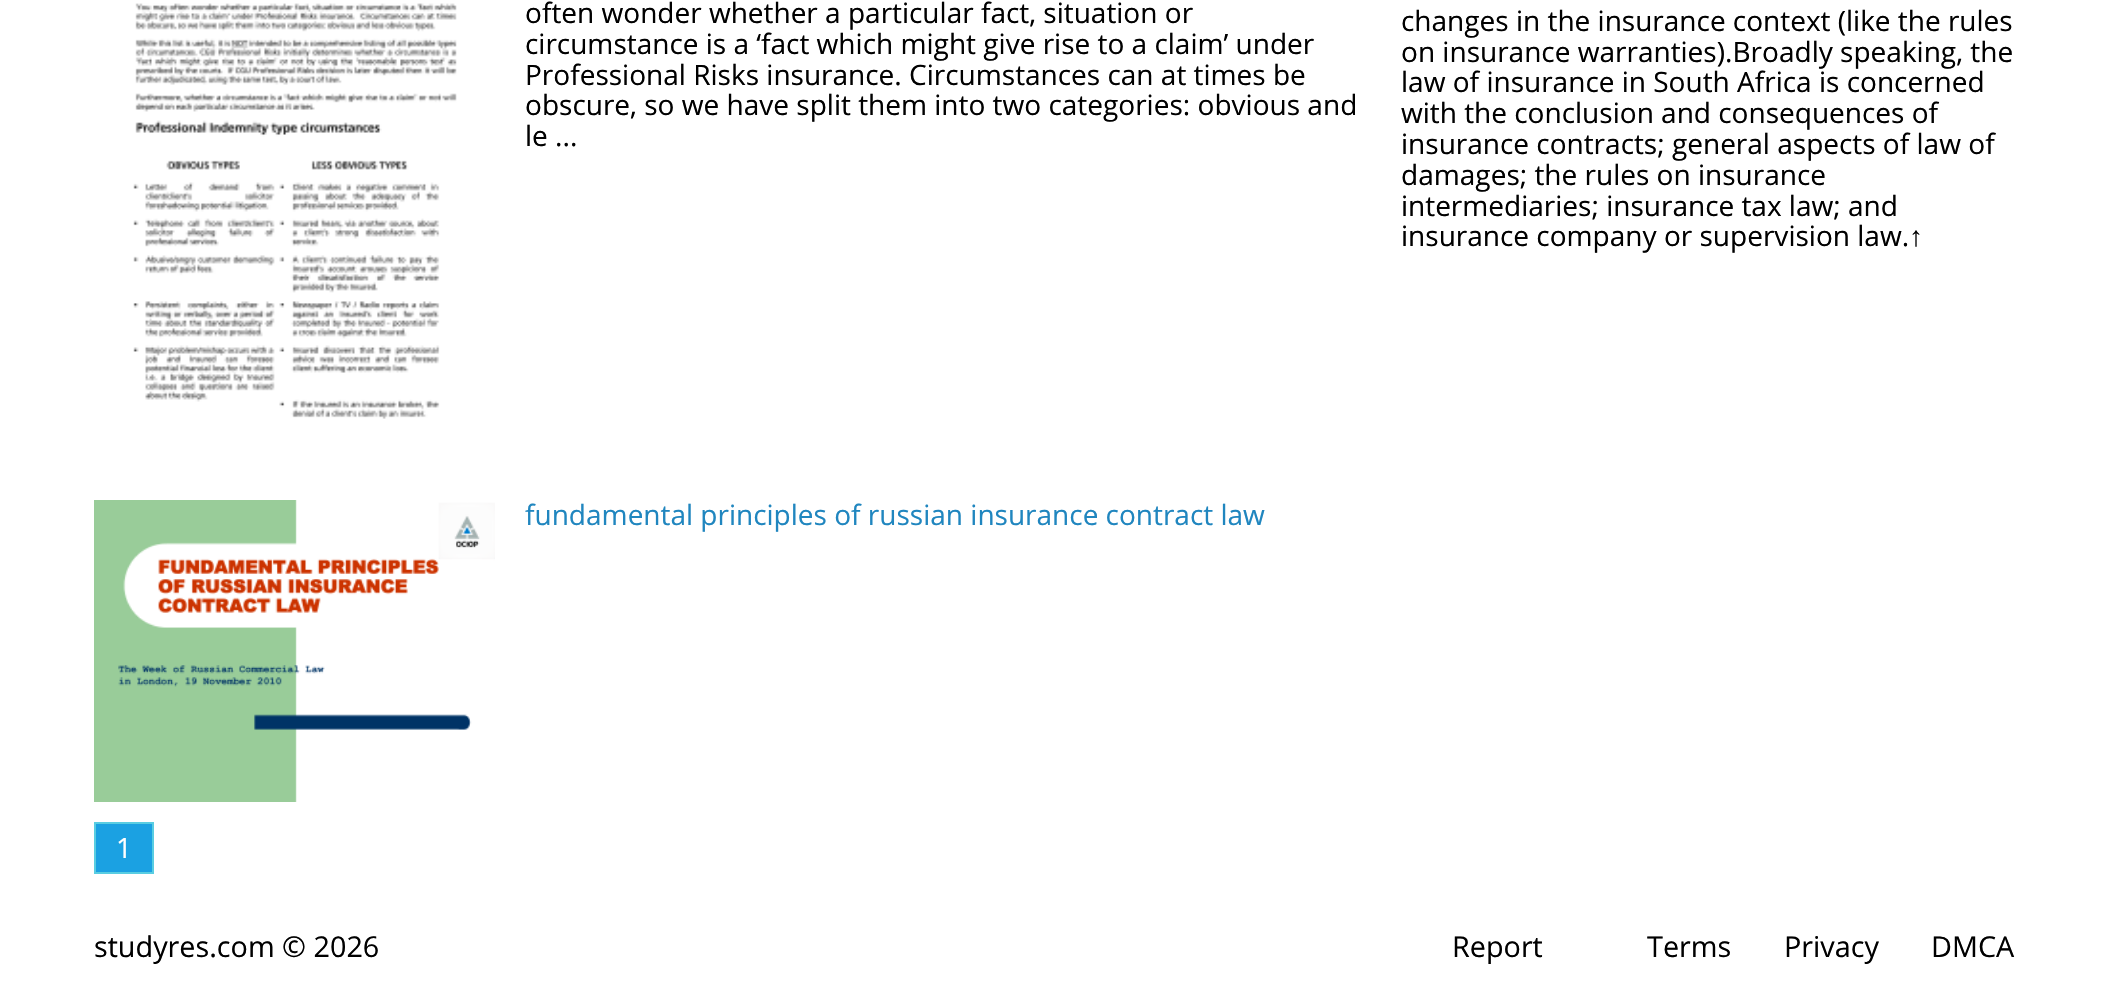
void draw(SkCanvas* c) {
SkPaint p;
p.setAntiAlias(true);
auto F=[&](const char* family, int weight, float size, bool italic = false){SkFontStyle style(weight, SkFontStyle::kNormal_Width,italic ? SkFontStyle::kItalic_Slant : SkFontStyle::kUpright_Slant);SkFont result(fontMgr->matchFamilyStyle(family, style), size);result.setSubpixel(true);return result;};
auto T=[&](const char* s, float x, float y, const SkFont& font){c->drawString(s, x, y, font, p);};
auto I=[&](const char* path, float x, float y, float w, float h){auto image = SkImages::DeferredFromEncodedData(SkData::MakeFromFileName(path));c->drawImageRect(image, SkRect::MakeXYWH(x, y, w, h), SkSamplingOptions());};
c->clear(0xffffffff);
I("1.png",133,3,324,416);
auto f1 = F("Open Sans",400,28);
p.setColor(0xff000000);
T("often wonder whether a particular fact, situation or",525,23,f1);
T("circumstance is a ‘fact which might give rise to a claim’ under",525,54,f1);
T("Professional Risks insurance. Circumstances can at times be",525,85,f1);
T("obscure, so we have split them into two categories: obvious and",525,115,f1);
T("le ...",525,146,f1);
I("2.png",94,500,401,302);
p.setColor(0xff2086bf);
T("fundamental principles of russian insurance contract law",525,525,f1);
p.setColor(0xff1ba1e2);
c->drawRect(SkRect::MakeXYWH(95,823,58,50),p);
p.setStroke(true);
p.setStrokeWidth(2);
p.setColor(0xff59cde2);
c->drawRect(SkRect::MakeXYWH(95,823,58,50),p);
p.setStroke(false);
p.setColor(0xffffffff);
T("1",116,858,f1);
p.setColor(0xff000000);
T("changes in the insurance context (like the rules",1401,31,f1);
T("on insurance warranties).Broadly speaking, the",1401,62,f1);
T("law of insurance in South Africa is concerned",1401,92,f1);
T("with the conclusion and consequences of",1401,123,f1);
T("insurance contracts; general aspects of law of",1401,154,f1);
T("damages; the rules on insurance",1401,185,f1);
T("intermediaries; insurance tax law; and",1401,216,f1);
T("insurance company or supervision law.",1401,246,f1);
auto f2 = F("Liberation Sans",400,28);
T("↑",1909,246,f2);
auto f3 = F("Open Sans",400,28.75);
T("studyres.com © 2026",94,957,f3);
T("Report",1452,957,f3);
T("Terms",1647,957,f3);
T("Privacy",1784,957,f3);
T("DMCA",1931,957,f3);
}
